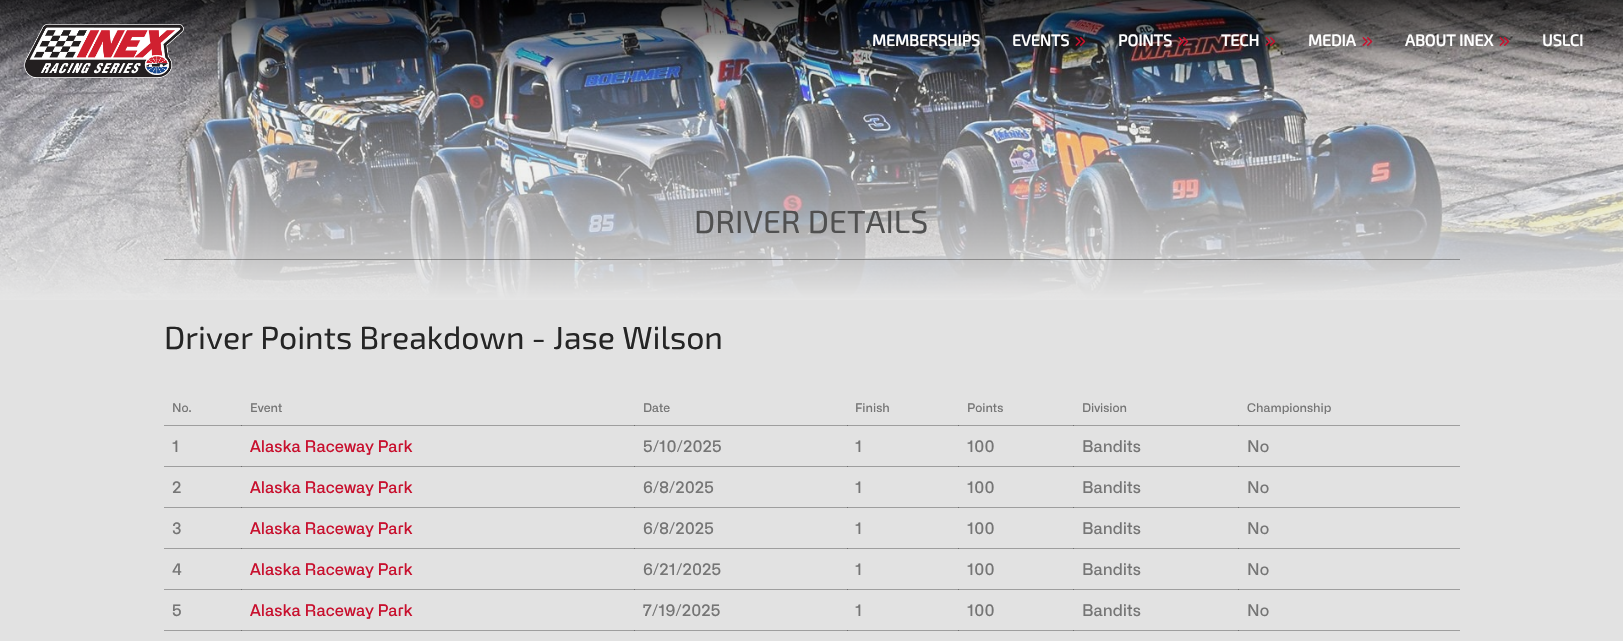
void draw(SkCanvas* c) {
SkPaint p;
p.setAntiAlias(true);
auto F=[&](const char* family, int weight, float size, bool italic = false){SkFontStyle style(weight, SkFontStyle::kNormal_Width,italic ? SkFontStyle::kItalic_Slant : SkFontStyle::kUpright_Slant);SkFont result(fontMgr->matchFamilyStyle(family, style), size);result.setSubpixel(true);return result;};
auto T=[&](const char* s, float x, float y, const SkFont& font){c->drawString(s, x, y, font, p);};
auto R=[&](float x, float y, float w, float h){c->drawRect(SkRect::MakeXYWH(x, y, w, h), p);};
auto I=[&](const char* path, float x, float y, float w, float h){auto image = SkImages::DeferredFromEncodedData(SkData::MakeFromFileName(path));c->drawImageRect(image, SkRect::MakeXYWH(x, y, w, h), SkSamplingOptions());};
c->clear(0xffe2e2e2);
p.setColor(0xff9e9e9e);
R(164,425,1296,1);
p.setColor(0xff6f6f6f);
R(241,425,1,1);
R(634,425,1,1);
R(847,425,1,1);
R(958,425,1,1);
R(1073,425,1,1);
p.setColor(0xff9e9e9e);
R(164,466,1296,1);
p.setColor(0xff6f6f6f);
R(241,466,1,1);
R(634,466,1,1);
R(847,466,1,1);
R(958,466,1,1);
R(1073,466,1,1);
p.setColor(0xff9e9e9e);
R(164,507,1296,1);
p.setColor(0xff6f6f6f);
R(241,507,1,1);
R(634,507,1,1);
R(847,507,1,1);
R(958,507,1,1);
R(1073,507,1,1);
p.setColor(0xff9e9e9e);
R(164,548,1296,1);
p.setColor(0xff6f6f6f);
R(241,548,1,1);
R(634,548,1,1);
R(847,548,1,1);
R(958,548,1,1);
R(1073,548,1,1);
p.setColor(0xff9e9e9e);
R(164,589,1296,1);
p.setColor(0xff6f6f6f);
R(241,589,1,1);
R(634,589,1,1);
R(847,589,1,1);
R(958,589,1,1);
R(1073,589,1,1);
p.setColor(0xff9e9e9e);
R(164,630,1296,1);
p.setColor(0xff6f6f6f);
R(241,630,1,1);
R(634,630,1,1);
R(847,630,1,1);
R(958,630,1,1);
R(1073,630,1,1);
I("7.png",0,0,1623,300);
I("1.png",24,24,160,54);
auto f1 = F("Exo 2",700,16);
p.setColor(0xffffffff);
T("MEMBERSHIPS",872,46,f1);
T("EVENTS",1012,46,f1);
I("2.png",1075,37,11,9);
T("POINTS",1118,46,f1);
I("3.png",1178,37,11,9);
T("TECH",1221,46,f1);
I("4.png",1265,37,11,9);
T("MEDIA",1308,46,f1);
I("5.png",1362,37,11,9);
T("ABOUT INEX",1405,46,f1);
I("6.png",1499,37,11,9);
T("USLCI",1542,46,f1);
p.setColor(0x4d000000);
R(164,259,1296,1);
auto f2 = F("Exo 2",400,32);
p.setColor(0xff505050);
T("DRIVER DETAILS",694,233,f2);
p.setColor(0xff252525);
T("Driver Points Breakdown - Jase Wilson",164,349,f2);
auto f3 = F("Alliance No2",500,12);
p.setColor(0xff757575);
T("No.",172,412,f3);
T("Event",250,412,f3);
T("Date",643,412,f3);
T("Finish",855,412,f3);
T("Points",967,412,f3);
T("Division",1082,412,f3);
p.setColor(0xff6f6f6f);
R(1238,425,1,1);
p.setColor(0xff757575);
T("Championship",1247,412,f3);
auto f4 = F("Alliance No2",500,16);
T("1",172,452,f4);
p.setColor(0xffc8102e);
T("Alaska Raceway Park",250,452,f4);
p.setColor(0xff757575);
T("5/10/2025",643,452,f4);
T("1",855,452,f4);
T("100",967,452,f4);
T("Bandits",1082,452,f4);
p.setColor(0xff6f6f6f);
R(1238,466,1,1);
p.setColor(0xff757575);
T("No",1247,452,f4);
T("2",172,493,f4);
p.setColor(0xffc8102e);
T("Alaska Raceway Park",250,493,f4);
p.setColor(0xff757575);
T("6/8/2025",643,493,f4);
T("1",855,493,f4);
T("100",967,493,f4);
T("Bandits",1082,493,f4);
p.setColor(0xff6f6f6f);
R(1238,507,1,1);
p.setColor(0xff757575);
T("No",1247,493,f4);
T("3",172,534,f4);
p.setColor(0xffc8102e);
T("Alaska Raceway Park",250,534,f4);
p.setColor(0xff757575);
T("6/8/2025",643,534,f4);
T("1",855,534,f4);
T("100",967,534,f4);
T("Bandits",1082,534,f4);
p.setColor(0xff6f6f6f);
R(1238,548,1,1);
p.setColor(0xff757575);
T("No",1247,534,f4);
T("4",172,575,f4);
p.setColor(0xffc8102e);
T("Alaska Raceway Park",250,575,f4);
p.setColor(0xff757575);
T("6/21/2025",643,575,f4);
T("1",855,575,f4);
T("100",967,575,f4);
T("Bandits",1082,575,f4);
p.setColor(0xff6f6f6f);
R(1238,589,1,1);
p.setColor(0xff757575);
T("No",1247,575,f4);
T("5",172,616,f4);
p.setColor(0xffc8102e);
T("Alaska Raceway Park",250,616,f4);
p.setColor(0xff757575);
T("7/19/2025",643,616,f4);
T("1",855,616,f4);
T("100",967,616,f4);
T("Bandits",1082,616,f4);
p.setColor(0xff6f6f6f);
R(1238,630,1,1);
p.setColor(0xff757575);
T("No",1247,616,f4);
}
